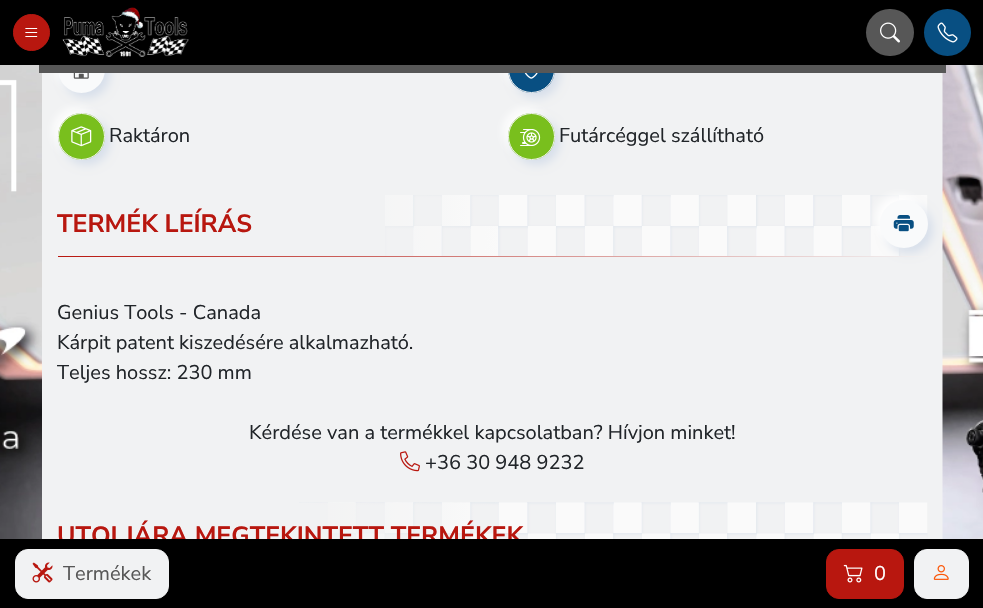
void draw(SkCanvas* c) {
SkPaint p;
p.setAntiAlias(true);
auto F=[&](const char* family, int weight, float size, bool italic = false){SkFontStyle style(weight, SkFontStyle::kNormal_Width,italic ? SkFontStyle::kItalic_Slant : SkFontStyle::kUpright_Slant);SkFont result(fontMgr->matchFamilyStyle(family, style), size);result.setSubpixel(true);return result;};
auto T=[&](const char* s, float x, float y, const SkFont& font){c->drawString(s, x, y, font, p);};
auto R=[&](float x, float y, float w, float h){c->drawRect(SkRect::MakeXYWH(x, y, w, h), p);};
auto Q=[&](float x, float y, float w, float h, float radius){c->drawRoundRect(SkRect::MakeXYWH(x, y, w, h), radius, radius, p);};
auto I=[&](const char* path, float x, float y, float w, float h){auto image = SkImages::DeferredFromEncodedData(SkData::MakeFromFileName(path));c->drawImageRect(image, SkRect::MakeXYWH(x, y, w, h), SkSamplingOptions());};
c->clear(0xfff1f2f3);
I("5.png",0,65,42,474);
p.setColor(0xffffffff);
p.setMaskFilter(SkMaskFilter::MakeBlur(kNormal_SkBlurStyle, 5));
c->drawRoundRect(SkRect::MakeXYWH(53,40,47,48),23.5,23.5,p);
p.setMaskFilter(nullptr);
p.setColor(0xffd7dfeb);
p.setMaskFilter(SkMaskFilter::MakeBlur(kNormal_SkBlurStyle, 5));
c->drawRoundRect(SkRect::MakeXYWH(63,50,47,48),23.5,23.5,p);
p.setMaskFilter(nullptr);
p.setColor(0xfff9fafb);
Q(58,45,47,48,23.5);
p.setColor(0xffffffff);
p.setMaskFilter(SkMaskFilter::MakeBlur(kNormal_SkBlurStyle, 5));
c->drawRoundRect(SkRect::MakeXYWH(503,40,47,48),23.5,23.5,p);
p.setMaskFilter(nullptr);
p.setColor(0xffd7dfeb);
p.setMaskFilter(SkMaskFilter::MakeBlur(kNormal_SkBlurStyle, 5));
c->drawRoundRect(SkRect::MakeXYWH(513,50,47,48),23.5,23.5,p);
p.setMaskFilter(nullptr);
p.setColor(0xff084f82);
Q(508,45,47,48,23.5);
I("7.png",524,73,14,6);
p.setStroke(true);
p.setStrokeWidth(1);
p.setColor(0xfff3f3f3);
c->drawRoundRect(SkRect::MakeXYWH(508.5,45.5,46,47),23,23,p);
p.setStroke(false);
p.setColor(0xff000000);
R(0,0,983,65);
p.setColor(0xffb8170f);
c->drawCircle(31.5,32.5,18,p);
p.setStroke(true);
c->drawCircle(31.5,32.5,18,p);
I("1.png",25,28,13,9);
I("2.png",62,7,127,50);
p.setStroke(false);
p.setColor(0xff575757);
Q(866,9,48,47,23.5);
I("3.png",880,22,20,21);
p.setColor(0xff084f82);
c->drawCircle(947.5,32.5,23.5,p);
I("4.png",937,22,21,21);
I("11.png",385,195,543,61);
p.setColor(0xffd7dfeb);
p.setMaskFilter(SkMaskFilter::MakeBlur(kNormal_SkBlurStyle, 5));
c->drawRoundRect(SkRect::MakeXYWH(885,205,48,48),24,24,p);
p.setMaskFilter(nullptr);
I("14.png",942,65,41,474);
p.setColor(0xff575757);
R(39,65,907,8);
I("6.png",73,73,16,6);
p.setColor(0xffffffff);
p.setMaskFilter(SkMaskFilter::MakeBlur(kNormal_SkBlurStyle, 5));
c->drawRoundRect(SkRect::MakeXYWH(53,108,47,47),23.5,23.5,p);
p.setMaskFilter(nullptr);
p.setColor(0xffd7dfeb);
p.setMaskFilter(SkMaskFilter::MakeBlur(kNormal_SkBlurStyle, 5));
c->drawRoundRect(SkRect::MakeXYWH(63,118,47,47),23.5,23.5,p);
p.setMaskFilter(nullptr);
p.setColor(0xff79bf1d);
c->drawCircle(81.5,136.5,23.5,p);
I("8.png",71,126,21,21);
p.setStroke(true);
p.setColor(0xfff3f3f3);
c->drawCircle(81.5,136.5,23,p);
auto f1 = F("Nunito Sans",400,20);
p.setStroke(false);
p.setColor(0xff212529);
T("Raktáron",109,142,f1);
p.setColor(0xffffffff);
p.setMaskFilter(SkMaskFilter::MakeBlur(kNormal_SkBlurStyle, 5));
c->drawRoundRect(SkRect::MakeXYWH(503,108,47,47),23.5,23.5,p);
p.setMaskFilter(nullptr);
p.setColor(0xffd7dfeb);
p.setMaskFilter(SkMaskFilter::MakeBlur(kNormal_SkBlurStyle, 5));
c->drawRoundRect(SkRect::MakeXYWH(513,118,47,47),23.5,23.5,p);
p.setMaskFilter(nullptr);
p.setColor(0xff79bf1d);
c->drawCircle(531.5,136.5,23.5,p);
I("9.png",520,129,21,17);
p.setStroke(true);
p.setColor(0xfff3f3f3);
c->drawCircle(531.5,136.5,23,p);
p.setStroke(false);
p.setColor(0xff212529);
T("Futárcéggel szállítható",559,142,f1);
p.setColor(0xffffffff);
p.setMaskFilter(SkMaskFilter::MakeBlur(kNormal_SkBlurStyle, 5));
c->drawRoundRect(SkRect::MakeXYWH(875,195,48,48),24,24,p);
p.setMaskFilter(nullptr);
p.setColor(0xfff9fafb);
c->drawCircle(904,224,24,p);
I("10.png",893,215,21,17);
auto f2 = F("Nunito Sans",700,25);
p.setColor(0xffb8170f);
T("TERMÉK LEÍRÁS",57,232,f2);
{
const SkColor colors[] = {0xffb8170f,0xfff1f2f3};
const float stops[] = {0,1};
const SkPoint ends[] = {{58,257}, {928,257}};
p.setShader(SkGradientShader::MakeLinear(ends, colors, stops, 2, SkTileMode::kClamp));
p.setAlpha(255);
}
R(58,256,870,1);
p.setShader(nullptr);
p.setColor(0xff212529);
T("Genius Tools - Canada",57,319,f1);
T("Kárpit patent kiszedésére alkalmazható.",57,349,f1);
T("Teljes hossz: 230 mm",57,379,f1);
T("Kérdése van a termékkel kapcsolatban? Hívjon minket!",249,439,f1);
I("12.png",400,451,20,21);
T("+36 30 948 9232",425,469,f1);
I("13.png",299,502,629,37);
p.setColor(0xffb8170f);
T("UTOLJÁRA MEGTEKINTETT TERMÉKEK",57,544,f2);
p.setColor(0xff000000);
R(0,539,983,69);
p.setColor(0xfff1f2f3);
c->drawRoundRect(SkRect::MakeXYWH(15.5,549.5,153,49),12.5,12.5,p);
p.setStroke(true);
c->drawRoundRect(SkRect::MakeXYWH(15.5,549.5,153,49),12.5,12.5,p);
I("15.png",32,562,21,21);
p.setStroke(false);
p.setColor(0xff575757);
T("Termékek",63,580,f1);
p.setColor(0xffb8170f);
c->drawRoundRect(SkRect::MakeXYWH(826.5,549.5,77,49),12.5,12.5,p);
p.setStroke(true);
c->drawRoundRect(SkRect::MakeXYWH(826.5,549.5,77,49),12.5,12.5,p);
I("16.png",843,564,20,19);
p.setStroke(false);
p.setColor(0xffffffff);
T("0",874,580,f1);
p.setColor(0xfff1f2f3);
c->drawRoundRect(SkRect::MakeXYWH(914.5,549.5,54,49),12.5,12.5,p);
p.setStroke(true);
c->drawRoundRect(SkRect::MakeXYWH(914.5,549.5,54,49),12.5,12.5,p);
I("17.png",933,565,16,15);
}
